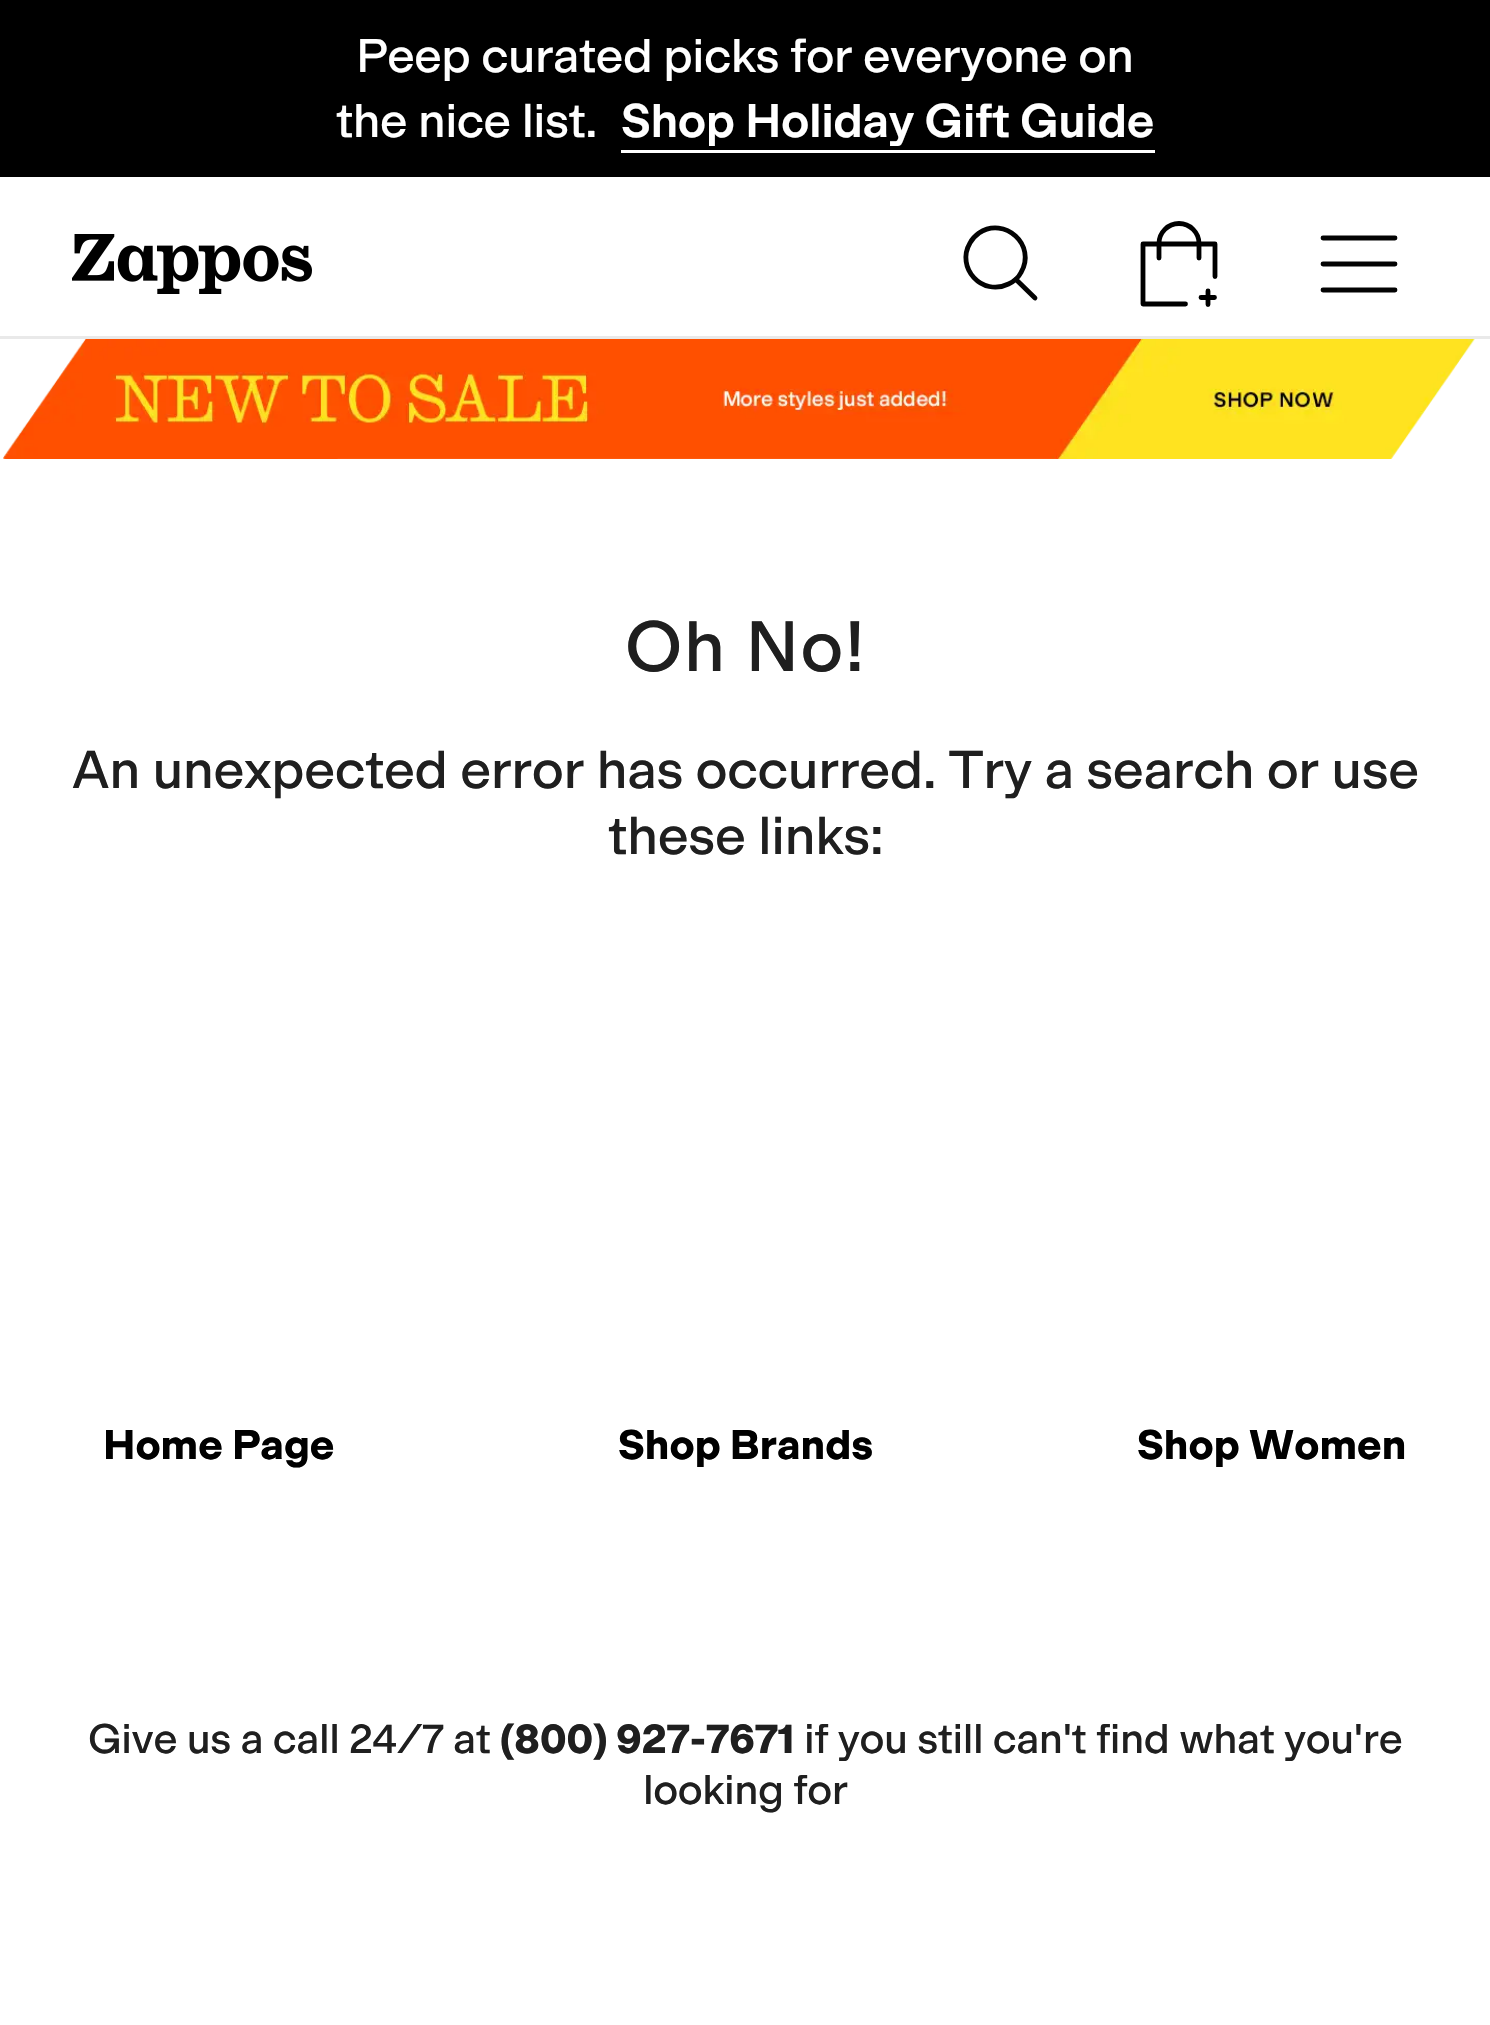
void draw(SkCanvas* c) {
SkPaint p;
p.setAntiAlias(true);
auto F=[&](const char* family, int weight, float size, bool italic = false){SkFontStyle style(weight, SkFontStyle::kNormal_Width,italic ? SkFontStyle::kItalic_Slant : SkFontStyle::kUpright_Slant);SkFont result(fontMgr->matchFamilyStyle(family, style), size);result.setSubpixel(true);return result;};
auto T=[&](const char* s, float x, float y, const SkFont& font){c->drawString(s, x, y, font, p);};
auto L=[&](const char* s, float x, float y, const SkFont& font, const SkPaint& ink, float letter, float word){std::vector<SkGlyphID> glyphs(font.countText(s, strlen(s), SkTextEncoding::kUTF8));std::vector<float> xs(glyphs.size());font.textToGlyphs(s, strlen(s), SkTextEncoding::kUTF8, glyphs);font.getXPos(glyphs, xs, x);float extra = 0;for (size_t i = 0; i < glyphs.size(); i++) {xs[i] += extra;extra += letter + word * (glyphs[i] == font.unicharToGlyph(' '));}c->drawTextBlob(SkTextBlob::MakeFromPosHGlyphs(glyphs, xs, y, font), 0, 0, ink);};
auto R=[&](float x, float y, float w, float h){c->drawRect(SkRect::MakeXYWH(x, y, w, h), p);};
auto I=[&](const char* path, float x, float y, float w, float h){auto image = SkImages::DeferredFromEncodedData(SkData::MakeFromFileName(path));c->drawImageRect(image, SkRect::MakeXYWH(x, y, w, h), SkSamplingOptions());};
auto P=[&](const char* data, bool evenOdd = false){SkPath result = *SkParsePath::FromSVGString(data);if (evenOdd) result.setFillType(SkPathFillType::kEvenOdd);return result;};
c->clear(0xffffffff);
p.setColor(0xff000000);
R(0,0,1490,177);
auto f1 = F("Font",400,48);
p.setColor(0xffffffff);
L("Peep curated picks for everyone on",356,72,f1,p,-.5,0);
L("the nice list.",336,137,f1,p,-.5,0);
auto f2 = F("Font",500,48);
L("Shop Holiday Gift Guide",621,137,f2,p,-.5,0);
R(621,150,534,3);
p.setColor(0xffe9e9e9);
R(0,336,1490,3);
I("1.png",72,234,240,60);
p.setStroke(true);
p.setStrokeWidth(4.8);
p.setStrokeCap(SkPaint::kRound_Cap);
p.setStrokeJoin(SkPaint::kRound_Join);
p.setColor(0xff030303);
c->drawPath(P("M970 243c-14.5 24.5 12 54 38.5 41c5.5-2.5 10-6.5 12.5-11.5c16-27.5-16.5-56.5-42-39.5c-3.5 2.5-7 6-9 10"),p);
p.setStrokeJoin(SkPaint::kMiter_Join);
c->drawPath(P("M1016 279.5l19 18.5"),p);
p.setStrokeJoin(SkPaint::kRound_Join);
p.setColor(0xff000000);
c->drawPath(P("M1199 258v-14.5c0-11-9-20-20-20c-11 0-20 9-20 20v14.5m42 39.5h13.5m-6.5-6.5v13.5"),p);
c->drawPath(P("M1215 276.5v-32.5h-72v60h42.5"),p);
p.setStrokeJoin(SkPaint::kMiter_Join);
p.setColor(0xff030303);
c->drawPath(P("M1323 290h72m-72-26h72m-72-26h72"),p);
I("2.png",3,339,1472,120);
auto f3 = F("Font",400,72);
p.setStroke(false);
p.setColor(0xff1f1f1f);
L("Oh No!",625,671,f3,p,1.5,0);
auto f4 = F("Font",400,54);
L("An unexpected error has occurred. Try a search or use",72,788,f4,p,-.42,0);
L("these links:",608,854,f4,p,-.42,0);
auto f5 = F("Font",700,42);
p.setColor(0xff000000);
T("Home Page",103,1459,f5);
T("Shop Brands",618,1459,f5);
T("Shop Women",1137,1459,f5);
auto f6 = F("Font",400,42);
p.setColor(0xff1f1f1f);
L("Give us a call 24/7 at",88,1753,f6,p,-.42,0);
L("(800) 927-7671",500,1753,f5,p,-.42,0);
L("if you still can't find what you're",804,1753,f6,p,-.42,0);
L("looking for",643,1804,f6,p,-.42,0);
}
